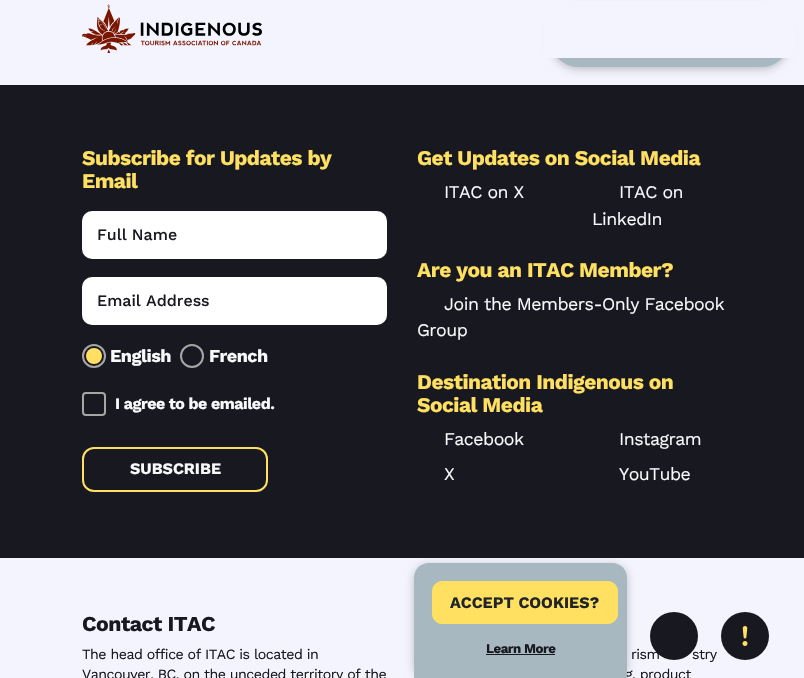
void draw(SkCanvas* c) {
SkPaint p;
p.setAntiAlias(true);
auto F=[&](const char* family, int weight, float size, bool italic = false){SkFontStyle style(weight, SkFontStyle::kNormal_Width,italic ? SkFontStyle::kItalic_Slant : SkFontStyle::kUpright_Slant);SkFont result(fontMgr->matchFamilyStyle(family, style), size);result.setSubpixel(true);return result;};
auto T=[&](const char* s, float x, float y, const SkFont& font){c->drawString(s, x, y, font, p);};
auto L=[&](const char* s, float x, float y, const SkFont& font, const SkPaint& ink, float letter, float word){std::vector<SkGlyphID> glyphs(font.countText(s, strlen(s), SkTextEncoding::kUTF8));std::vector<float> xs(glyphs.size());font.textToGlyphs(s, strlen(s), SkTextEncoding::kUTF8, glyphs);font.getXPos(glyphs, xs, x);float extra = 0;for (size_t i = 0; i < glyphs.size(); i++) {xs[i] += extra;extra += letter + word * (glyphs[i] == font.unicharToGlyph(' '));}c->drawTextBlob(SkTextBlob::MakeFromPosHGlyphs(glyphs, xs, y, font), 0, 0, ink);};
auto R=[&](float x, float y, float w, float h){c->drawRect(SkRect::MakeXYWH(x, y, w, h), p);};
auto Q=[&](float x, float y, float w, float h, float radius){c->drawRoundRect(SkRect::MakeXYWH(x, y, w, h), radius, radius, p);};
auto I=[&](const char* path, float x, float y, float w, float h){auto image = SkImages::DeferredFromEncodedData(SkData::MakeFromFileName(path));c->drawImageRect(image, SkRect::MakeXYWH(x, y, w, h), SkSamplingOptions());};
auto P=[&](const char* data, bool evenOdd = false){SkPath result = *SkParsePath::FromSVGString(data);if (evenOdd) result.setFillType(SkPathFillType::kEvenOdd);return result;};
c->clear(0xfff4f4ff);
p.setColor(0x3d000000);
p.setMaskFilter(SkMaskFilter::MakeBlur(kNormal_SkBlurStyle, 4));
c->drawRoundRect(SkRect::MakeXYWH(551,8,238,61),27,27,p);
p.setMaskFilter(nullptr);
p.setColor(0xffa8b8c0);
Q(551,6,238,61,27);
p.setColor(0xfff4f4ff);
R(544,1,252,57);
I("1.png",82,4,180,49);
p.setColor(0xff181820);
c->drawCircle(674,636,24,p);
c->drawCircle(745,636,24,p);
I("2.png",742,626,6,20);
R(0,85,804,473);
auto f1 = F("Work Sans",700,20.9);
p.setColor(0xffffe061);
L("Subscribe for Updates by",82,165,f1,p,-.5,0);
L("Email",82,188,f1,p,-.5,0);
p.setColor(0xffffffff);
Q(82,211,305,48,10);
auto f2 = F("Work Sans",500,16);
p.setColor(0xff181820);
T("Full Name",97,240,f2);
p.setColor(0xffffffff);
Q(82,277,305,48,10);
p.setColor(0xff181820);
T("Email Address",97,306,f2);
p.setStroke(true);
p.setStrokeWidth(2);
p.setColor(0xffa6a6a6);
c->drawCircle(94,356,11,p);
p.setStroke(false);
p.setColor(0xffffe061);
c->drawCircle(94,356,8,p);
auto f3 = F("Work Sans",700,18);
p.setColor(0xfff8f9fa);
L("English",110,362,f3,p,-.5,0);
p.setStroke(true);
p.setColor(0xffa6a6a6);
c->drawCircle(192,356,11,p);
p.setStroke(false);
p.setColor(0xfff8f9fa);
L("French",209,362,f3,p,-.5,0);
p.setStroke(true);
p.setColor(0xffa6a6a6);
c->drawRoundRect(SkRect::MakeXYWH(83,393,22,22),3,3,p);
auto f4 = F("Work Sans",700,16);
p.setStroke(false);
p.setColor(0xfff8f9fa);
L("I agree to be emailed.",115,409,f4,p,-.5,0);
p.setStroke(true);
p.setColor(0xffffe061);
c->drawRoundRect(SkRect::MakeXYWH(83,448,184,43),11,11,p);
p.setStroke(false);
p.setColor(0xfff8f9fa);
T("SUBSCRIBE",130,474,f4);
p.setColor(0xffffe061);
L("Get Updates on Social Media",417,165,f1,p,-.5,0);
auto f5 = F("Work Sans",400,17.75);
p.setColor(0xfff8f9fa);
L("ITAC on X",444,198,f5,p,-.5,0);
L("ITAC on",619,198,f5,p,-.5,0);
L("LinkedIn",592,225,f5,p,-.5,0);
p.setColor(0xffffe061);
L("Are you an ITAC Member?",417,277,f1,p,-.5,0);
p.setColor(0xfff8f9fa);
L("Join the Members-Only Facebook",444,310,f5,p,-.5,0);
L("Group",417,336,f5,p,-.5,0);
p.setColor(0xffffe061);
L("Destination Indigenous on",417,389,f1,p,-.5,0);
L("Social Media",417,412,f1,p,-.5,0);
p.setColor(0xfff8f9fa);
L("Facebook",444,445,f5,p,-.5,0);
L("Instagram",619,445,f5,p,-.5,0);
L("X",444,480,f5,p,-.5,0);
L("YouTube",619,480,f5,p,-.5,0);
auto f6 = F("Work Sans",700,21.25);
p.setColor(0xff181820);
L("Contact ITAC",82,631,f6,p,-.5,0);
auto f7 = F("Work Sans",400,14.2);
L("The head office of ITAC is located in",82,659,f7,p,-.5,0);
L("Vancouver, BC, on the unceded territory of the",82,679,f7,p,-.5,0);
L("rism",631,659,f7,p,-.5,0);
L("stry",692,659,f7,p,-.5,0);
L("g, product",625,679,f7,p,-.5,0);
p.setColor(0x3d000000);
p.setMaskFilter(SkMaskFilter::MakeBlur(kNormal_SkBlurStyle, 4));
c->drawRoundRect(SkRect::MakeXYWH(414,565,213,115),15,15,p);
p.setMaskFilter(nullptr);
p.setColor(0xffa8b8c0);
c->drawPath(P("M429 563h183c8.5 0 15 6.5 15 15v100h-213v-100c0-8.5 6.5-15 15-15z"),p);
p.setColor(0xffffe061);
c->drawRoundRect(SkRect::MakeXYWH(432.5,581.5,185,42),9.5,9.5,p);
p.setStroke(true);
p.setStrokeWidth(1);
c->drawRoundRect(SkRect::MakeXYWH(432.5,581.5,185,42),9.5,9.5,p);
p.setStroke(false);
p.setColor(0xff212529);
T("ACCEPT COOKIES?",450,608,f4);
auto f8 = F("Work Sans",700,13.25);
p.setColor(0xff181820);
L("Learn More",486,653,f8,p,-.5,0);
R(486,654,69,1);
}
